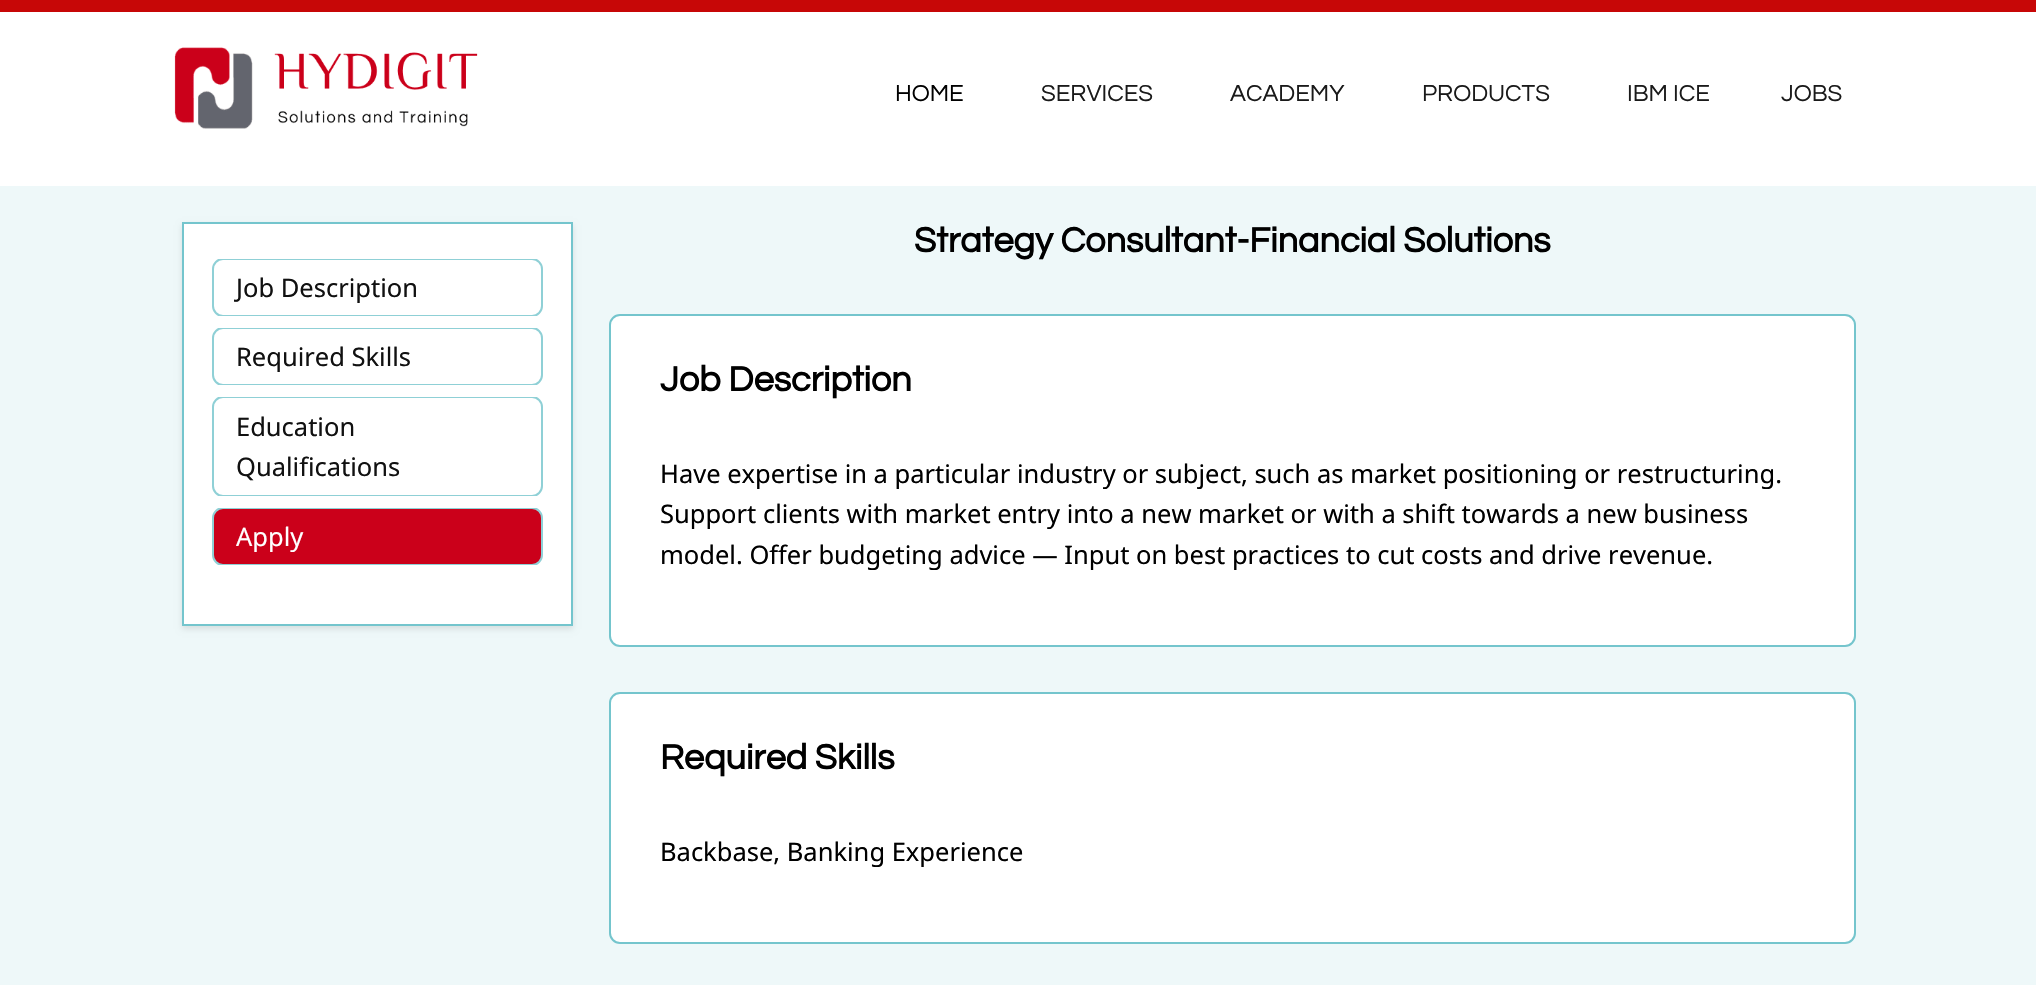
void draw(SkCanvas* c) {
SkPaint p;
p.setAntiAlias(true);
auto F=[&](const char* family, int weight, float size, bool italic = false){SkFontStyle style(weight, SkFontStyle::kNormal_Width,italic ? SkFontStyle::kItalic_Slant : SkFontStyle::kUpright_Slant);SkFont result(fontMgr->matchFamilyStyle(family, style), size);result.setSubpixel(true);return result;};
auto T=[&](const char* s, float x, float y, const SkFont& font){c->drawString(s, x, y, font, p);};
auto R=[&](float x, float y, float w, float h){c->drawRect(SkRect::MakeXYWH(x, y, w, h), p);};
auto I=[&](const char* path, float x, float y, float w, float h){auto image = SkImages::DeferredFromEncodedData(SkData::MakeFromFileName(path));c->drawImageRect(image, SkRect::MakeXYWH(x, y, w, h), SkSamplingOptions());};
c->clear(0xffffffff);
p.setColor(0xffc70707);
R(0,0,2036,12);
I("1.png",174,47,304,82);
auto f1 = F("Questrial",400,24);
p.setColor(0xff000000);
T("HOME",895,101,f1);
p.setColor(0xff1a1a1a);
T("SERVICES",1041,101,f1);
T("ACADEMY",1230,101,f1);
T("PRODUCTS",1422,101,f1);
T("IBM ICE",1627,101,f1);
T("JOBS",1781,101,f1);
p.setColor(0xffeef8f9);
R(0,186,2036,799);
p.setColor(0x1a000000);
p.setMaskFilter(SkMaskFilter::MakeBlur(kNormal_SkBlurStyle, 3));
c->drawRect(SkRect::MakeXYWH(182,225,391,404),p);
p.setMaskFilter(nullptr);
p.setColor(0xffffffff);
c->drawRect(SkRect::MakeXYWH(183,223,389,402),p);
p.setStroke(true);
p.setStrokeWidth(2);
p.setColor(0xff74c5cd);
c->drawRect(SkRect::MakeXYWH(183,223,389,402),p);
p.setColor(0xff8fd0d6);
c->drawRoundRect(SkRect::MakeXYWH(213,259,329,57),10,10,p);
p.setColor(0xffffffff);
c->drawRect(SkRect::MakeXYWH(201,258,353,59),p);
auto f2 = F("Noto Sans",400,25.5);
p.setStroke(false);
p.setColor(0xff111111);
T("Job Description",236,297,f2);
p.setStroke(true);
p.setColor(0xff8fd0d6);
c->drawRoundRect(SkRect::MakeXYWH(213,328,329,57),10,10,p);
p.setColor(0xffffffff);
c->drawRect(SkRect::MakeXYWH(201,327,353,59),p);
p.setStroke(false);
p.setColor(0xff111111);
T("Required Skills",236,366,f2);
p.setStroke(true);
p.setColor(0xff8fd0d6);
c->drawRoundRect(SkRect::MakeXYWH(213,397,329,99),10,10,p);
p.setColor(0xffffffff);
c->drawRect(SkRect::MakeXYWH(201,396,353,101),p);
p.setStroke(false);
p.setColor(0xff111111);
T("Education",236,436,f2);
T("Qualifications",236,476,f2);
p.setColor(0xffcb001a);
c->drawRoundRect(SkRect::MakeXYWH(213,508,329,57),10,10,p);
p.setStroke(true);
p.setColor(0xff8fd0d6);
c->drawRoundRect(SkRect::MakeXYWH(213,508,329,57),10,10,p);
p.setColor(0xffffffff);
c->drawRect(SkRect::MakeXYWH(201,507,353,59),p);
p.setStroke(false);
T("Apply",236,546,f2);
auto f3 = F("Questrial",700,36);
p.setColor(0xff000000);
T("Strategy Consultant-Financial Solutions",914,252,f3);
p.setColor(0xffffffff);
c->drawRoundRect(SkRect::MakeXYWH(610,315,1245,331),10,10,p);
p.setStroke(true);
p.setColor(0xff74c5cd);
c->drawRoundRect(SkRect::MakeXYWH(610,315,1245,331),10,10,p);
p.setStroke(false);
p.setColor(0xff000000);
T("Job Description",660,391,f3);
T("Have expertise in a particular industry or subject, such as market positioning or restructuring.",660,483,f2);
T("Support clients with market entry into a new market or with a shift towards a new business",660,523,f2);
T("model. Offer budgeting advice — Input on best practices to cut costs and drive revenue.",660,564,f2);
p.setColor(0xffffffff);
c->drawRoundRect(SkRect::MakeXYWH(610,693,1245,250),10,10,p);
p.setStroke(true);
p.setColor(0xff74c5cd);
c->drawRoundRect(SkRect::MakeXYWH(610,693,1245,250),10,10,p);
p.setStroke(false);
p.setColor(0xff000000);
T("Required Skills",660,769,f3);
T("Backbase, Banking Experience",660,861,f2);
}
